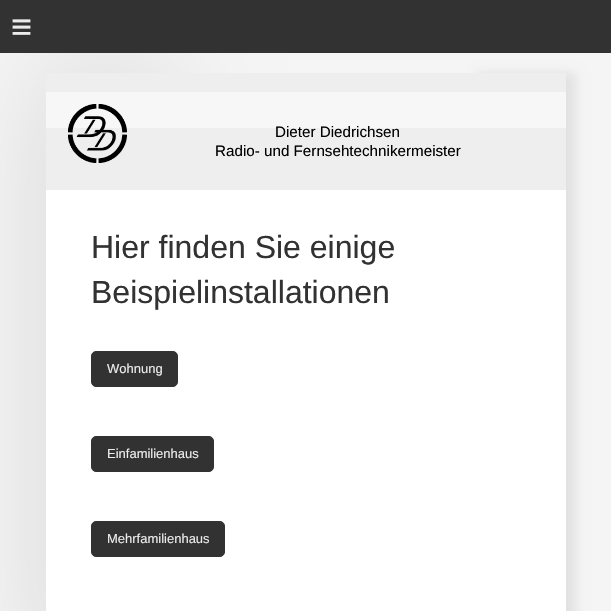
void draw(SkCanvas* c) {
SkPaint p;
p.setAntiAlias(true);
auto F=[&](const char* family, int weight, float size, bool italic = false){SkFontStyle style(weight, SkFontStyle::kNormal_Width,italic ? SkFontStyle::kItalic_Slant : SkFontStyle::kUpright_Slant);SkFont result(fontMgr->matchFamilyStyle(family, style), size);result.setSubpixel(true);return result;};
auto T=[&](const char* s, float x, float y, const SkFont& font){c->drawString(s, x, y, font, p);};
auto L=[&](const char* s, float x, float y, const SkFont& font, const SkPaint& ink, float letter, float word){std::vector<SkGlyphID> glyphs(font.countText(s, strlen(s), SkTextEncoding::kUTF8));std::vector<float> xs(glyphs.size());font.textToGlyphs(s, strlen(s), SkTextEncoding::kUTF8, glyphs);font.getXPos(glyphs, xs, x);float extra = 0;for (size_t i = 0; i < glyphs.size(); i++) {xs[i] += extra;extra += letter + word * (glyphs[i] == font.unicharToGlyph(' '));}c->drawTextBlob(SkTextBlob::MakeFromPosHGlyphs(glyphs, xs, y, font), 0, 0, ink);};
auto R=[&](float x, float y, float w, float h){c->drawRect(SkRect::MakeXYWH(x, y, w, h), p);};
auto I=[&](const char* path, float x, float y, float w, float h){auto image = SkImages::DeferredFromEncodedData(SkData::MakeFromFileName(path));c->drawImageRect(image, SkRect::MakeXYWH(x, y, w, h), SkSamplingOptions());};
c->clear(0xfff5f5f5);
p.setColor(0x26000000);
p.setMaskFilter(SkMaskFilter::MakeBlur(kNormal_SkBlurStyle, 60));
c->drawRect(SkRect::MakeXYWH(56,73,100,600),p);
p.setMaskFilter(nullptr);
p.setColor(0xff333232);
R(0,0,611,53);
auto f1 = F("Liberation Sans",400,36);
p.setColor(0xffebebeb);
L("≡",11,39,f1,p,10,0);
p.setColor(0x14000000);
p.setMaskFilter(SkMaskFilter::MakeBlur(kNormal_SkBlurStyle, 5));
c->drawRect(SkRect::MakeXYWH(476,73,100,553),p);
p.setMaskFilter(nullptr);
p.setColor(0xffeeeeee);
R(46,73,520,117);
p.setColor(0xfff7f7f7);
R(46,92,520,36);
I("1.png",68,104,59,59);
auto f2 = F("Liberation Sans",400,15.2);
p.setColor(0xff000000);
T("Dieter Diedrichsen",275,137,f2);
T("Radio- und Fernsehtechnikermeister",215,156,f2);
p.setColor(0xffffffff);
R(46,190,520,421);
auto f3 = F("Liberation Sans",400,32);
p.setColor(0xff333232);
T("Hier finden Sie einige",91,258,f3);
T("Beispielinstallationen",91,303,f3);
c->drawRoundRect(SkRect::MakeXYWH(91.5,351.5,86,35),4.5,4.5,p);
p.setStroke(true);
p.setStrokeWidth(1);
c->drawRoundRect(SkRect::MakeXYWH(91.5,351.5,86,35),4.5,4.5,p);
auto f4 = F("Liberation Sans",400,13);
p.setStroke(false);
p.setColor(0xffebebeb);
T("Wohnung",107,373,f4);
p.setColor(0xff333232);
c->drawRoundRect(SkRect::MakeXYWH(91.5,436.5,122,35),4.5,4.5,p);
p.setStroke(true);
c->drawRoundRect(SkRect::MakeXYWH(91.5,436.5,122,35),4.5,4.5,p);
p.setStroke(false);
p.setColor(0xffebebeb);
T("Einfamilienhaus",107,458,f4);
p.setColor(0xff333232);
c->drawRoundRect(SkRect::MakeXYWH(91.5,521.5,133,35),4.5,4.5,p);
p.setStroke(true);
c->drawRoundRect(SkRect::MakeXYWH(91.5,521.5,133,35),4.5,4.5,p);
p.setStroke(false);
p.setColor(0xffebebeb);
T("Mehrfamilienhaus",107,543,f4);
}
